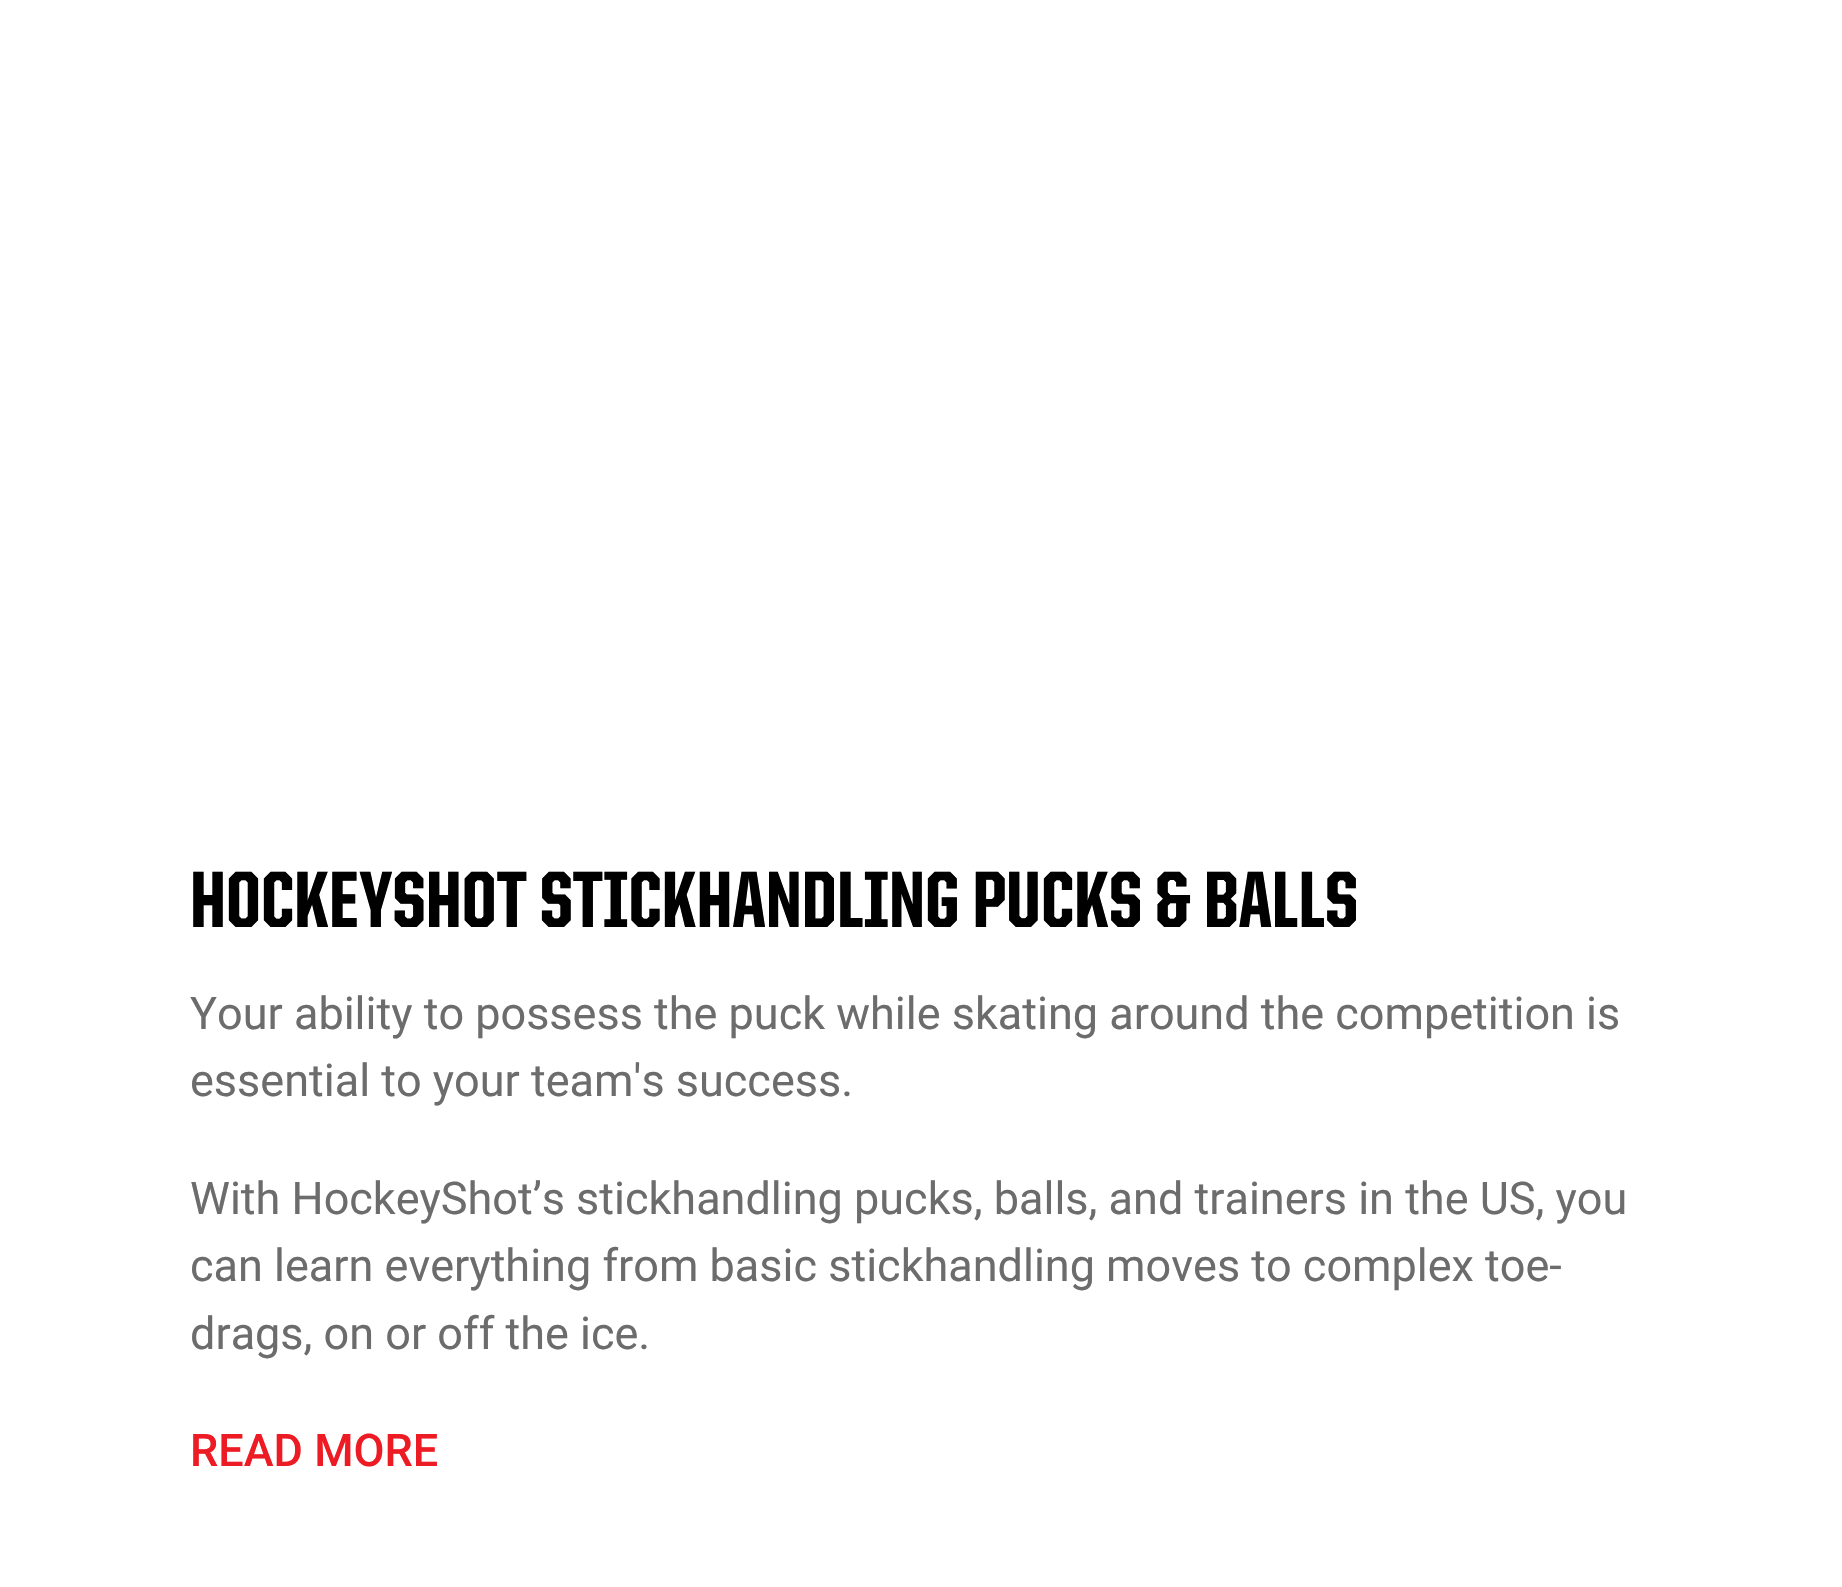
void draw(SkCanvas* c) {
SkPaint p;
p.setAntiAlias(true);
auto F=[&](const char* family, int weight, float size, bool italic = false){SkFontStyle style(weight, SkFontStyle::kNormal_Width,italic ? SkFontStyle::kItalic_Slant : SkFontStyle::kUpright_Slant);SkFont result(fontMgr->matchFamilyStyle(family, style), size);result.setSubpixel(true);return result;};
auto T=[&](const char* s, float x, float y, const SkFont& font){c->drawString(s, x, y, font, p);};
c->clear(0xffffffff);
auto f1 = F("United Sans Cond",900,80);
p.setColor(0xff000000);
T("HOCKEYSHOT STICKHANDLING PUCKS & BALLS",190,927,f1);
auto f2 = F("Roboto",400,45);
p.setColor(0xff6c6c6c);
T("Your ability to possess the puck while skating around the competition is",190,1029,f2);
T("essential to your team's success.",190,1096,f2);
T("With HockeyShot’s stickhandling pucks, balls, and trainers in the US, you",190,1214,f2);
T("can learn everything from basic stickhandling moves to complex toe-",190,1281,f2);
T("drags, on or off the ice.",190,1349,f2);
auto f3 = F("Roboto",500,45);
p.setColor(0xffed1c24);
T("READ MORE",190,1466,f3);
}
